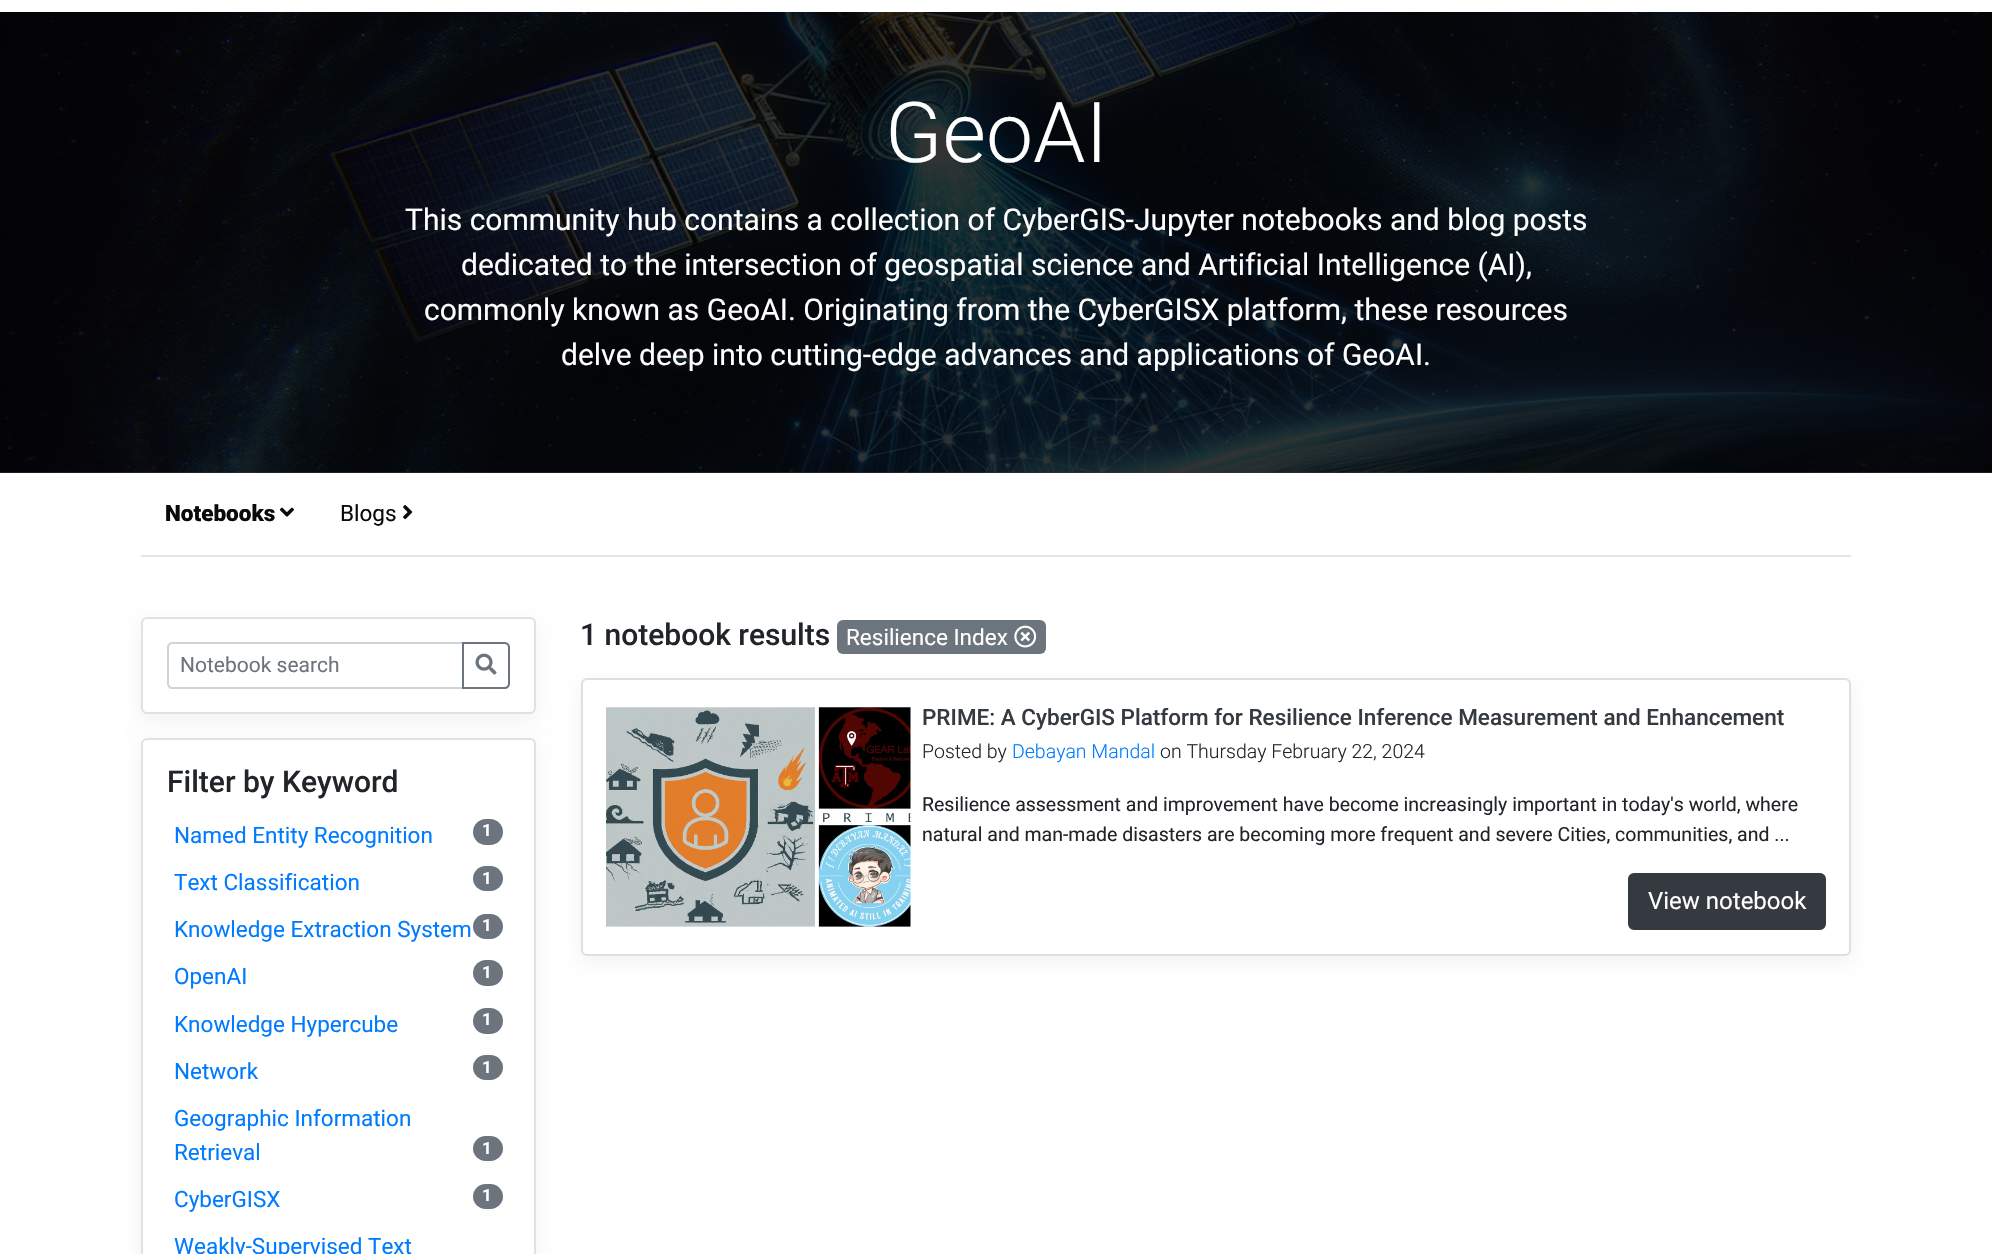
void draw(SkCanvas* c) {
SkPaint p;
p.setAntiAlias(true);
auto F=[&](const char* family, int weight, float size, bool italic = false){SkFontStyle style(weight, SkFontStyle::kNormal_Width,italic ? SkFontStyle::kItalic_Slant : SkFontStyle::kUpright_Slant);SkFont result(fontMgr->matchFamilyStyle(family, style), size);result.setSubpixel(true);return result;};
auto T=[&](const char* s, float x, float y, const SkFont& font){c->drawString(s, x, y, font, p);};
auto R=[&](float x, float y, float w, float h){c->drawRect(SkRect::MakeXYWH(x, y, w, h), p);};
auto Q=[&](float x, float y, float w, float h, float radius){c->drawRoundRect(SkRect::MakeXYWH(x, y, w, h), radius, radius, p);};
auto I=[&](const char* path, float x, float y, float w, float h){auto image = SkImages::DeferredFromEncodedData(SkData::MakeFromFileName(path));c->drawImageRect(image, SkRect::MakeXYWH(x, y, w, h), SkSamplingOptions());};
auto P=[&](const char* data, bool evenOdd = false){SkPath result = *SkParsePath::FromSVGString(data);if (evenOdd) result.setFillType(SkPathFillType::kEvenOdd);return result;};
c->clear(0xffffffff);
p.setColor(0xff333333);
R(0,472,1992,1);
I("1.png",0,12,1992,461);
auto f1 = F("Roboto",300,84);
p.setColor(0xffffffff);
T("GeoAI",885,162,f1);
auto f2 = F("Roboto",400,30);
T("This community hub contains a collection of CyberGIS-Jupyter notebooks and blog posts",405,230,f2);
T("dedicated to the intersection of geospatial science and Artificial Intelligence (AI),",461,275,f2);
T("commonly known as GeoAI. Originating from the CyberGISX platform, these resources",424,320,f2);
T("delve deep into cutting-edge advances and applications of GeoAI.",561,365,f2);
p.setColor(0xffe5e5e5);
R(141,555,1710,2);
auto f3 = F("Roboto",900,22.5);
p.setColor(0xff0a0a0a);
T("Notebooks",165,521,f3);
I("2.png",279,507,15,10);
auto f4 = F("Roboto",400,22.5);
T("Blogs",340,521,f4);
I("3.png",403,505,10,15);
p.setColor(0x0d000000);
p.setMaskFilter(SkMaskFilter::MakeBlur(kNormal_SkBlurStyle, 9));
c->drawRoundRect(SkRect::MakeXYWH(141,623,395,97),6,6,p);
p.setMaskFilter(nullptr);
p.setColor(0xffffffff);
c->drawRoundRect(SkRect::MakeXYWH(142,618,393,95),5,5,p);
p.setStroke(true);
p.setStrokeWidth(2);
p.setColor(0xffdee2e6);
c->drawRoundRect(SkRect::MakeXYWH(142,618,393,95),5,5,p);
p.setColor(0xffced4da);
c->drawPath(P("M172 643h291v45h-291c-2 0-4-2-4-4v-37c0-2 2-4 4-4z"),p);
auto f5 = F("Roboto",400,21);
p.setStroke(false);
p.setColor(0xff6c757d);
T("Notebook search",180,672,f5);
p.setStroke(true);
c->drawPath(P("M463 643h42c2 0 4 2 4 4v37c0 2-2 4-4 4h-42z"),p);
I("4.png",475,653,22,22);
p.setStroke(false);
p.setColor(0x0d000000);
p.setMaskFilter(SkMaskFilter::MakeBlur(kNormal_SkBlurStyle, 9));
c->drawRoundRect(SkRect::MakeXYWH(141,744,395,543),6,6,p);
p.setMaskFilter(nullptr);
p.setColor(0xffffffff);
c->drawRoundRect(SkRect::MakeXYWH(142,739,393,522),5,5,p);
p.setStroke(true);
p.setColor(0xffdee2e6);
c->drawRoundRect(SkRect::MakeXYWH(142,739,393,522),5,5,p);
auto f6 = F("Roboto",500,30);
p.setStroke(false);
p.setColor(0xff212529);
T("Filter by Keyword",167,792,f6);
p.setColor(0xff007bff);
T("Named Entity Recognition",174,843,f4);
p.setColor(0xff6c757d);
Q(473,819,30,26,13);
auto f7 = F("Roboto",700,17);
p.setColor(0xffffffff);
T("1",482,836,f7);
p.setColor(0xff007bff);
T("Text Classification",174,890,f4);
p.setColor(0xff6c757d);
Q(473,866,30,25,12.5);
p.setColor(0xffffffff);
T("1",482,884,f7);
p.setColor(0xff007bff);
T("Knowledge Extraction System",174,937,f4);
p.setColor(0xff6c757d);
Q(473,914,30,25,12.5);
p.setColor(0xffffffff);
T("1",482,931,f7);
p.setColor(0xff007bff);
T("OpenAI",174,984,f4);
p.setColor(0xff6c757d);
Q(473,960,30,26,13);
p.setColor(0xffffffff);
T("1",482,978,f7);
p.setColor(0xff007bff);
T("Knowledge Hypercube",174,1032,f4);
p.setColor(0xff6c757d);
Q(473,1008,30,26,13);
p.setColor(0xffffffff);
T("1",482,1025,f7);
p.setColor(0xff007bff);
T("Network",174,1079,f4);
p.setColor(0xff6c757d);
Q(473,1055,30,25,12.5);
p.setColor(0xffffffff);
T("1",482,1073,f7);
p.setColor(0xff007bff);
T("Geographic Information",174,1126,f4);
T("Retrieval",174,1160,f4);
p.setColor(0xff6c757d);
Q(473,1136,30,25,12.5);
p.setColor(0xffffffff);
T("1",482,1154,f7);
p.setColor(0xff007bff);
T("CyberGISX",174,1207,f4);
p.setColor(0xff6c757d);
Q(473,1184,30,25,12.5);
p.setColor(0xffffffff);
T("1",482,1201,f7);
p.setColor(0xff007bff);
T("Weakly-Supervised Text",174,1254,f4);
p.setColor(0xff212529);
T("1 notebook results",580,645,f6);
p.setColor(0xff6c757d);
Q(837,620,209,34,6);
p.setColor(0xffffffff);
T("Resilience Index",846,645,f4);
I("5.png",1014,625,23,23);
p.setColor(0x0d000000);
p.setMaskFilter(SkMaskFilter::MakeBlur(kNormal_SkBlurStyle, 9));
c->drawRoundRect(SkRect::MakeXYWH(581,684,1270,278),6,6,p);
p.setMaskFilter(nullptr);
p.setColor(0xffffffff);
c->drawRoundRect(SkRect::MakeXYWH(582,679,1268,276),5,5,p);
p.setStroke(true);
p.setColor(0xffdfdfdf);
c->drawRoundRect(SkRect::MakeXYWH(582,679,1268,276),5,5,p);
I("6.png",606,707,305,220);
auto f8 = F("Roboto",500,22.5);
p.setStroke(false);
p.setColor(0xff343a40);
T("PRIME: A CyberGIS Platform for Resilience Inference Measurement and Enhancement",922,725,f8);
auto f9 = F("Roboto",300,19.5);
p.setColor(0xff212529);
T("Posted by",922,758,f9);
p.setColor(0xff007bff);
T("Debayan Mandal",1012,758,f9);
p.setColor(0xff212529);
T("on Thursday February 22, 2024",1160,758,f9);
auto f10 = F("Roboto",400,19.5);
T("Resilience assessment and improvement have become increasingly important in today's world, where",922,811,f10);
T("natural and man-made disasters are becoming more frequent and severe Cities, communities, and ...",922,841,f10);
p.setColor(0xff343a40);
c->drawRoundRect(SkRect::MakeXYWH(1629,874,196,55),5,5,p);
p.setStroke(true);
c->drawRoundRect(SkRect::MakeXYWH(1629,874,196,55),5,5,p);
auto f11 = F("Roboto",400,24);
p.setStroke(false);
p.setColor(0xffffffff);
T("View notebook",1648,909,f11);
}
